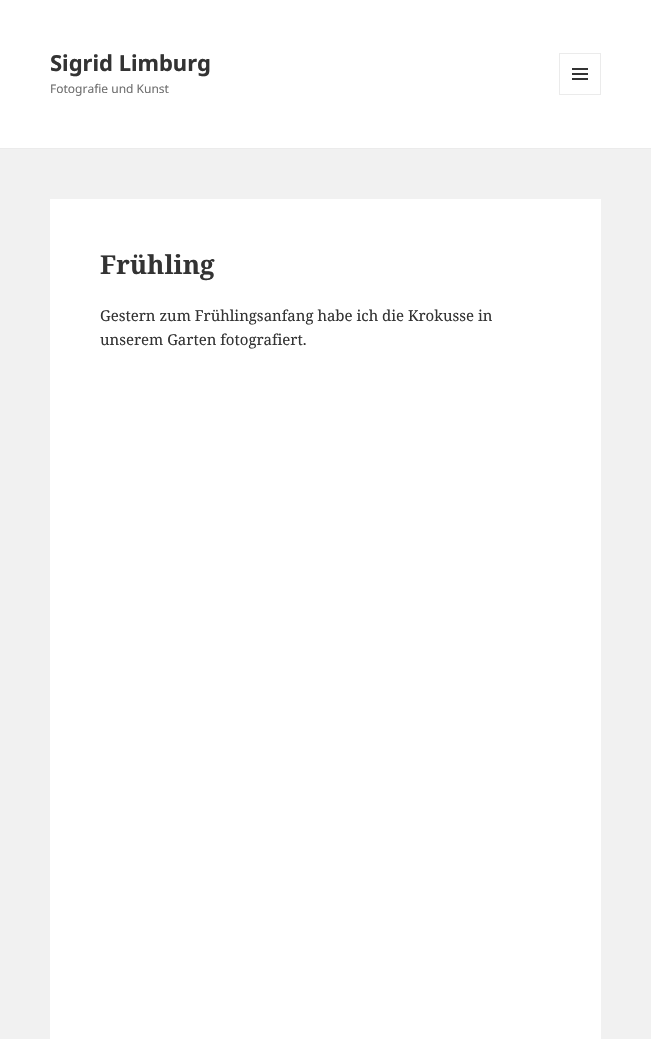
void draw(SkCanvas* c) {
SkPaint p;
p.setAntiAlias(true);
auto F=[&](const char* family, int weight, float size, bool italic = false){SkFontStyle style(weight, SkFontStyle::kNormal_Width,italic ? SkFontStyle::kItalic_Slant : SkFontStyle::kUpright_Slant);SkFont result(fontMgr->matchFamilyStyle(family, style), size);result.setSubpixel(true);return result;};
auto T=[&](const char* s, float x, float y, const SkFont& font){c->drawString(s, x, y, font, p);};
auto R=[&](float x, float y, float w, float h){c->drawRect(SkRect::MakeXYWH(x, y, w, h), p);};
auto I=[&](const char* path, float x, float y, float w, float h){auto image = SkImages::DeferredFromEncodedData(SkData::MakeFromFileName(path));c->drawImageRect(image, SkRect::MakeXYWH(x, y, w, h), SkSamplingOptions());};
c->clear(0xfff1f1f1);
p.setColor(0xffffffff);
R(0,0,651,148);
p.setColor(0xffebebeb);
R(0,148,651,1);
auto f1 = F("Noto Sans",700,22);
p.setColor(0xff333333);
T("Sigrid Limburg",50,71,f1);
p.setStroke(true);
p.setStrokeWidth(1);
p.setColor(0xffebebeb);
c->drawRect(SkRect::MakeXYWH(559.5,53.5,41,41),p);
I("1.png",572,68,16,12);
auto f2 = F("Noto Sans",400,12);
p.setStroke(false);
p.setColor(0xff707070);
T("Fotografie und Kunst",50,93,f2);
p.setColor(0xffffffff);
R(50,199,551,840);
auto f3 = F("Noto Serif",700,26);
p.setColor(0xff333333);
T("Frühling",100,274,f3);
auto f4 = F("Noto Serif",400,15);
T("Gestern zum Frühlingsanfang habe ich die Krokusse in",100,321,f4);
T("unserem Garten fotografiert.",100,345,f4);
}
